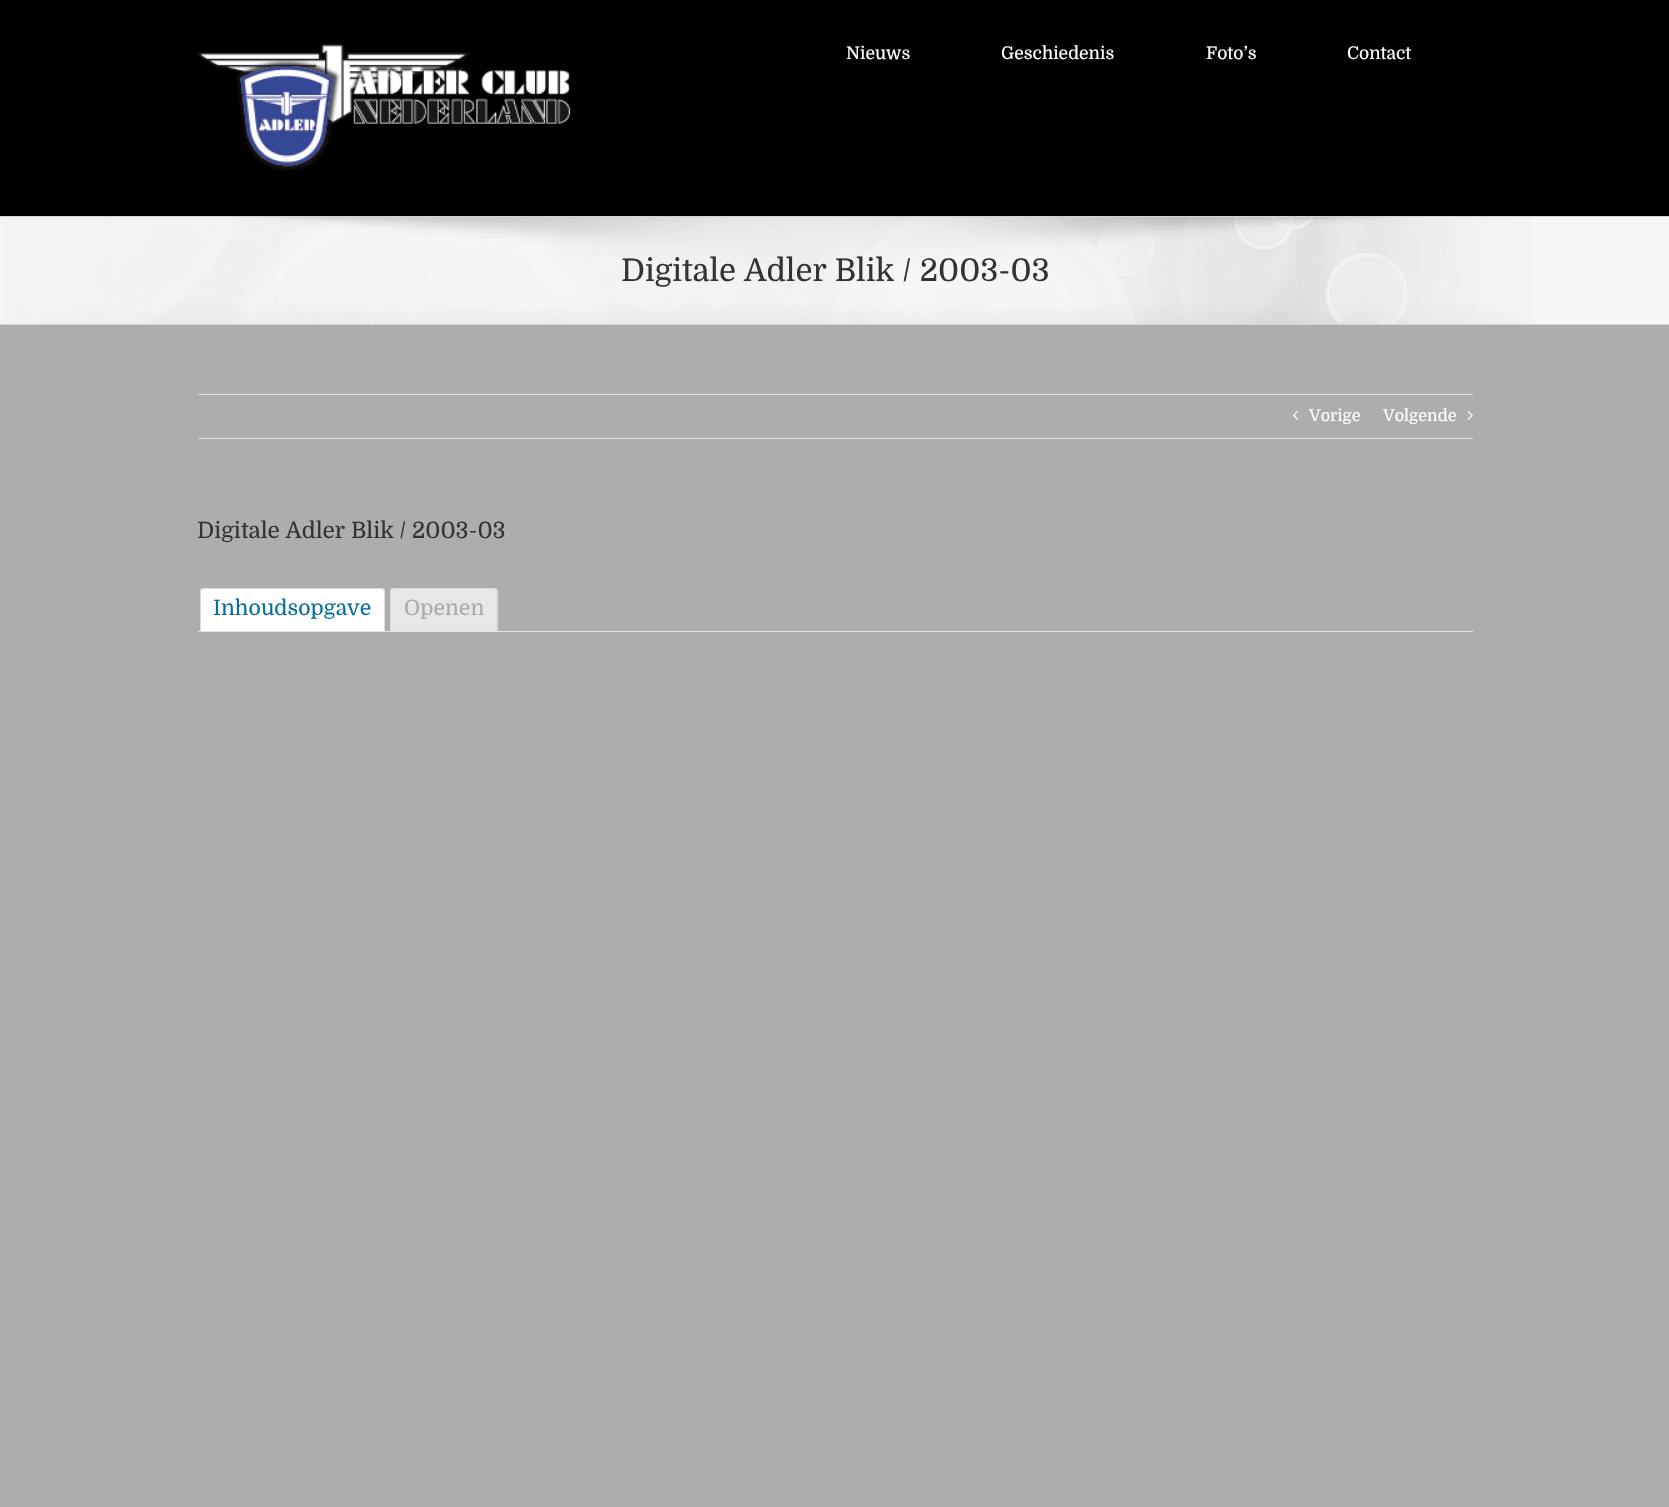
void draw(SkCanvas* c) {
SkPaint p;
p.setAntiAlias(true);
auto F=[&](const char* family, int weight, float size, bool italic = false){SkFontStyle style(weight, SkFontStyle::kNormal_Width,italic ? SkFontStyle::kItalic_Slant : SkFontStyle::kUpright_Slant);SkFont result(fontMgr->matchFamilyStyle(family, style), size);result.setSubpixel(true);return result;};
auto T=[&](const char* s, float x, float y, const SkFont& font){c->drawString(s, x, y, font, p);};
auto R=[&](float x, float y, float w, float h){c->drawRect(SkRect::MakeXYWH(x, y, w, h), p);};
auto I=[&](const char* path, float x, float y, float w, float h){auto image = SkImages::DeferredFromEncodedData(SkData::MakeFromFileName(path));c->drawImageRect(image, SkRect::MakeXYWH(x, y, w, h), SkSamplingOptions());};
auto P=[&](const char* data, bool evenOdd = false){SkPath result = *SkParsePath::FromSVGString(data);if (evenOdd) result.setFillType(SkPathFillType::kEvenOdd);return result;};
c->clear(0xffadadad);
p.setColor(0xff000000);
R(0,0,1669,216);
I("1.png",197,43,374,129);
auto f1 = F("Domine",400,17.5);
p.setColor(0xffffffff);
T("Nieuws",846,59,f1);
T("Geschiedenis",1001,59,f1);
T("Foto’s",1206,59,f1);
T("Contact",1347,59,f1);
p.setColor(0xfff6f6f6);
R(0,217,1669,107);
I("2.png",4,217,1528,107);
p.setColor(0xffd2d3d4);
R(0,216,1669,1);
R(0,324,1669,1);
auto f2 = F("Domine",400,31.25);
p.setColor(0xff333333);
T("Digitale Adler Blik / 2003-03",621,281,f2);
p.setColor(0xffe0dede);
R(198,394,1275,1);
R(198,438,1275,1);
I("3.png",1293,411,6,9);
auto f3 = F("Domine",400,16.25);
p.setColor(0xffffffff);
T("Vorige",1309,421,f3);
T("Volgende",1383,421,f3);
I("4.png",1467,411,6,9);
auto f4 = F("Domine",400,22.5);
p.setColor(0xff333333);
T("Digitale Adler Blik / 2003-03",197,538,f4);
p.setColor(0xffffffff);
c->drawPath(P("M204 588h177c2 0 4 2 4 4v39h-185v-39c0-2 2-4 4-4z"),p);
p.setColor(0xffdcdcdc);
c->drawPath(P("M204 588h177c2 0 4 1 4 3v40h-185v-40c0-2 2-3 4-3zm0 1h177c2 0 3 1 3 2v40h-183v-40c0-1 1-2 3-2z",true),p);
auto f5 = F("Domine",400,21.25);
p.setColor(0xff086fa1);
T("Inhoudsopgave",213,615,f5);
p.setColor(0xffe7e7e7);
c->drawPath(P("M394 588h100c2 0 4 2 4 4v39h-108v-39c0-2 2-4 4-4z"),p);
p.setColor(0xffdcdcdc);
c->drawPath(P("M394 588h100c2 0 4 1 4 3v40h-108v-40c0-2 2-3 4-3zm0 1h100c1 0 2 1 2 2v40h-105v-40c0-1 1-2 3-2z",true),p);
p.setColor(0xffaaaaaa);
T("Openen",404,615,f5);
p.setColor(0xffe2e2e2);
R(198,631,1275,1);
}
